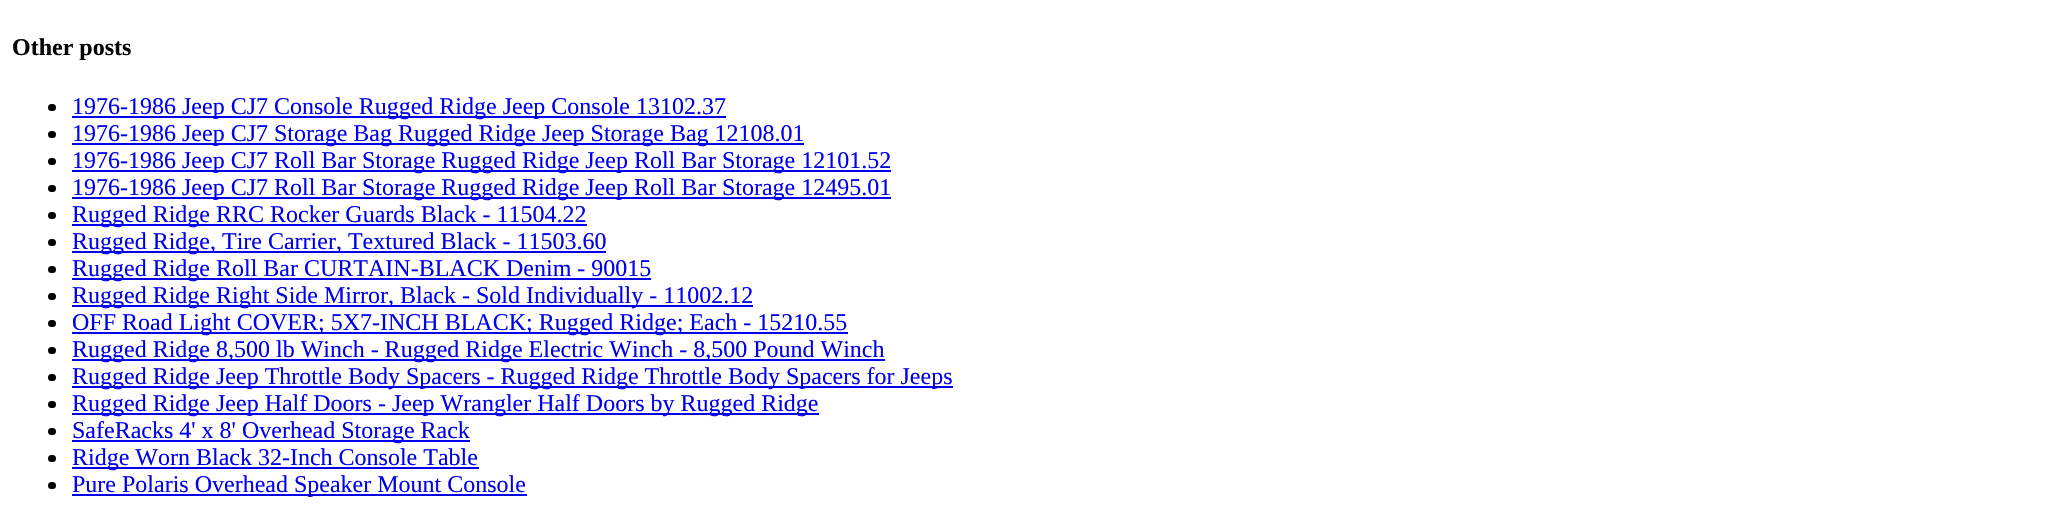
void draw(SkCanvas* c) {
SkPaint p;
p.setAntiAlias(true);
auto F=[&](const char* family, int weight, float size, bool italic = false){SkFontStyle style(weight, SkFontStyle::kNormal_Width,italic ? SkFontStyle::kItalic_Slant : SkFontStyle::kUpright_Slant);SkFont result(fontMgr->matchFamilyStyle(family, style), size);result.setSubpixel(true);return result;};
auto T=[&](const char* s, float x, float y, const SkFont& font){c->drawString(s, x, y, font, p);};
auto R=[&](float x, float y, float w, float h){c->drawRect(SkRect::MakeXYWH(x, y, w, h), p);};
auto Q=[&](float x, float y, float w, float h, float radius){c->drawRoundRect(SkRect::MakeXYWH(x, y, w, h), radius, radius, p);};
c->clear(0xffffffff);
auto f1 = F("Liberation Serif",700,24);
p.setColor(0xff000000);
T("Other posts",12,55,f1);
Q(48,104,8,7,3.5);
p.setColor(0xff0000ee);
R(72,116,654,2);
auto f2 = F("Liberation Serif",400,24);
T("1976-1986 Jeep CJ7 Console Rugged Ridge Jeep Console 13102.37",72,114,f2);
p.setColor(0xff000000);
Q(48,131,8,7,3.5);
p.setColor(0xff0000ee);
R(72,143,732,2);
T("1976-1986 Jeep CJ7 Storage Bag Rugged Ridge Jeep Storage Bag 12108.01",72,141,f2);
p.setColor(0xff000000);
Q(48,158,8,7,3.5);
p.setColor(0xff0000ee);
R(72,170,819,2);
T("1976-1986 Jeep CJ7 Roll Bar Storage Rugged Ridge Jeep Roll Bar Storage 12101.52",72,168,f2);
p.setColor(0xff000000);
Q(48,185,8,7,3.5);
p.setColor(0xff0000ee);
R(72,197,819,2);
T("1976-1986 Jeep CJ7 Roll Bar Storage Rugged Ridge Jeep Roll Bar Storage 12495.01",72,195,f2);
p.setColor(0xff000000);
Q(48,212,8,7,3.5);
p.setColor(0xff0000ee);
R(72,224,515,2);
T("Rugged Ridge RRC Rocker Guards Black - 11504.22",72,222,f2);
p.setColor(0xff000000);
Q(48,239,8,7,3.5);
p.setColor(0xff0000ee);
R(72,251,534,2);
T("Rugged Ridge, Tire Carrier, Textured Black - 11503.60",72,249,f2);
p.setColor(0xff000000);
Q(48,266,8,7,3.5);
p.setColor(0xff0000ee);
R(72,278,579,2);
T("Rugged Ridge Roll Bar CURTAIN-BLACK Denim - 90015",72,276,f2);
p.setColor(0xff000000);
Q(48,293,8,7,3.5);
p.setColor(0xff0000ee);
R(72,305,681,2);
T("Rugged Ridge Right Side Mirror, Black - Sold Individually - 11002.12",72,303,f2);
p.setColor(0xff000000);
Q(48,320,8,7,3.5);
p.setColor(0xff0000ee);
R(72,332,776,2);
T("OFF Road Light COVER; 5X7-INCH BLACK; Rugged Ridge; Each - 15210.55",72,330,f2);
p.setColor(0xff000000);
Q(48,347,8,7,3.5);
p.setColor(0xff0000ee);
R(72,359,813,2);
T("Rugged Ridge 8,500 lb Winch - Rugged Ridge Electric Winch - 8,500 Pound Winch",72,357,f2);
p.setColor(0xff000000);
Q(48,374,8,7,3.5);
p.setColor(0xff0000ee);
R(72,386,881,2);
T("Rugged Ridge Jeep Throttle Body Spacers - Rugged Ridge Throttle Body Spacers for Jeeps",72,384,f2);
p.setColor(0xff000000);
Q(48,401,8,7,3.5);
p.setColor(0xff0000ee);
R(72,413,747,2);
T("Rugged Ridge Jeep Half Doors - Jeep Wrangler Half Doors by Rugged Ridge",72,411,f2);
p.setColor(0xff000000);
Q(48,428,8,7,3.5);
p.setColor(0xff0000ee);
R(72,440,398,2);
T("SafeRacks 4' x 8' Overhead Storage Rack",72,438,f2);
p.setColor(0xff000000);
Q(48,455,8,7,3.5);
p.setColor(0xff0000ee);
R(72,467,407,2);
T("Ridge Worn Black 32-Inch Console Table",72,465,f2);
p.setColor(0xff000000);
Q(48,482,8,7,3.5);
p.setColor(0xff0000ee);
R(72,494,455,2);
T("Pure Polaris Overhead Speaker Mount Console",72,492,f2);
}
